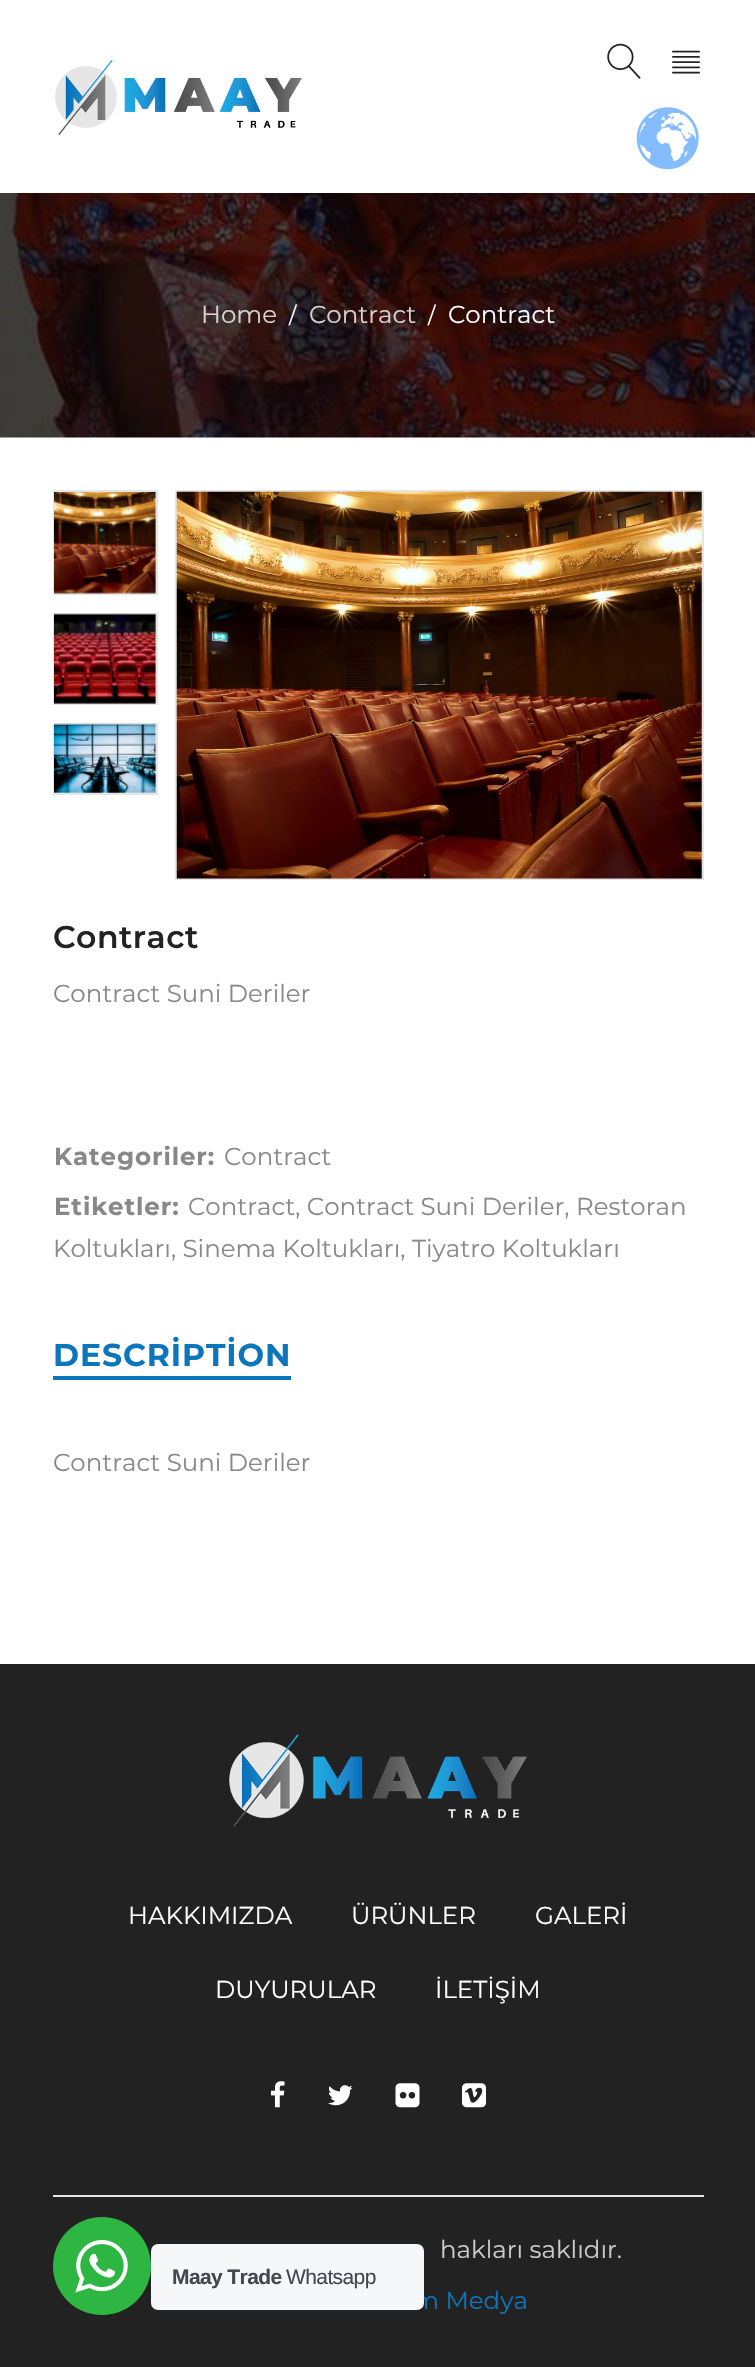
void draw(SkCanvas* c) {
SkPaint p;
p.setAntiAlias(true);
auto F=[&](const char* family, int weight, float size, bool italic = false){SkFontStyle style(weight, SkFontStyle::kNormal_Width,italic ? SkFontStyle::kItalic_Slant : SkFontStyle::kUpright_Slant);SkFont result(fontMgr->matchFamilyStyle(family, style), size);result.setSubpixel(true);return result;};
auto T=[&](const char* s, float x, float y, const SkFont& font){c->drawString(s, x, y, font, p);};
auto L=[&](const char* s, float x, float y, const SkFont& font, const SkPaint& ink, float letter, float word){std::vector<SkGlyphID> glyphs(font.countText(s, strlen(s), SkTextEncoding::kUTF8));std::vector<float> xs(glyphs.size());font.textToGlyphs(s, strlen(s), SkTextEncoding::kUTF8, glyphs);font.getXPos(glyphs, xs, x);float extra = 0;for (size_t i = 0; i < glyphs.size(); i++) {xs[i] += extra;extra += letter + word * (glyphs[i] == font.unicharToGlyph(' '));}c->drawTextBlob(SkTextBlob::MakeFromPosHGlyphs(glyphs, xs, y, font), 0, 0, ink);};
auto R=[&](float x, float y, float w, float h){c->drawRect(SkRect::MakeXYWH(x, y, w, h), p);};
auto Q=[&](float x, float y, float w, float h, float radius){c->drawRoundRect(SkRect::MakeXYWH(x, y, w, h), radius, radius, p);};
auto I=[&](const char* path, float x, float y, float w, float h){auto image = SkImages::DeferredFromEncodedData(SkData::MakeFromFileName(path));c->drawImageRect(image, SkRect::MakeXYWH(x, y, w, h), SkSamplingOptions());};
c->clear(0xffffffff);
I("1.png",55,60,247,75);
I("2.png",607,43,34,36);
I("3.png",672,50,28,24);
I("4.png",636,107,63,63);
I("5.png",0,193,755,245);
auto f1 = F("Montserrat",400,24.5);
p.setColor(0xffd8d3d3);
T("Home",201,323,f1);
auto f2 = F("Montserrat",400,22);
p.setColor(0xffffffff);
T("/",289,323,f2);
p.setColor(0xffd8d3d3);
T("Contract",309,323,f1);
p.setColor(0xffffffff);
T("/",428,323,f2);
T("Contract",448,323,f1);
p.setStroke(true);
p.setStrokeWidth(2);
p.setColor(0xffe5e5e5);
c->drawRect(SkRect::MakeXYWH(54,491,103,103),p);
I("6.png",54,492,102,102);
c->drawRect(SkRect::MakeXYWH(54,614,103,90),p);
I("7.png",54,613,102,91);
c->drawRect(SkRect::MakeXYWH(54,724,103,70),p);
I("8.png",54,723,102,70);
c->drawRect(SkRect::MakeXYWH(176,491,527,388),p);
I("9.png",176,491,526,388);
auto f3 = F("Montserrat",600,31.5);
p.setStroke(false);
p.setColor(0xff222222);
L("Contract",53,948,f3,p,.5,0);
p.setColor(0xff888888);
T("Contract Suni Deriler",53,1002,f1);
auto f4 = F("Montserrat",700,24.5);
L("Kategoriler:",54,1165,f4,p,.9,0);
T("Contract",224,1165,f1);
L("Etiketler:",54,1215,f4,p,.9,0);
T("Contract, Contract Suni Deriler, Restoran",188,1215,f1);
T("Koltukları, Sinema Koltukları, Tiyatro Koltukları",53,1257,f1);
auto f5 = F("Montserrat",700,31.5);
p.setColor(0xff0c76bc);
L("DESCRİPTİON",53,1366,f5,p,.9,0);
R(53,1376,238,4);
p.setColor(0xff888888);
T("Contract Suni Deriler",53,1471,f1);
p.setColor(0xff222222);
R(0,1664,755,703);
I("10.png",229,1734,298,93);
p.setColor(0xffffffff);
T("HAKKIMIZDA",128,1924,f1);
T("ÜRÜNLER",351,1924,f1);
T("GALERİ",535,1924,f1);
T("DUYURULAR",215,1998,f1);
T("İLETİŞİM",435,1998,f1);
I("11.png",271,2081,14,27);
I("12.png",328,2085,25,21);
I("13.png",395,2083,25,25);
I("14.png",462,2083,24,25);
p.setColor(0xffe4e4e4);
R(53,2195,651,2);
p.setColor(0xffcccccc);
T("hakları saklıdır.",440,2258,f1);
p.setColor(0xff0c76bc);
T("m Medya",413,2309,f1);
p.setColor(0xff2db742);
c->drawCircle(102,2266,49,p);
I("15.png",75,2240,53,53);
p.setColor(0xfff5f7f9);
Q(151,2244,273,66,7);
auto f6 = F("Liberation Sans",700,21);
p.setColor(0xff43474e);
L("Maay Trade",172,2284,f6,p,-.6,0);
auto f7 = F("Liberation Sans",400,21);
L("Whatsapp",286,2284,f7,p,-.6,0);
}
